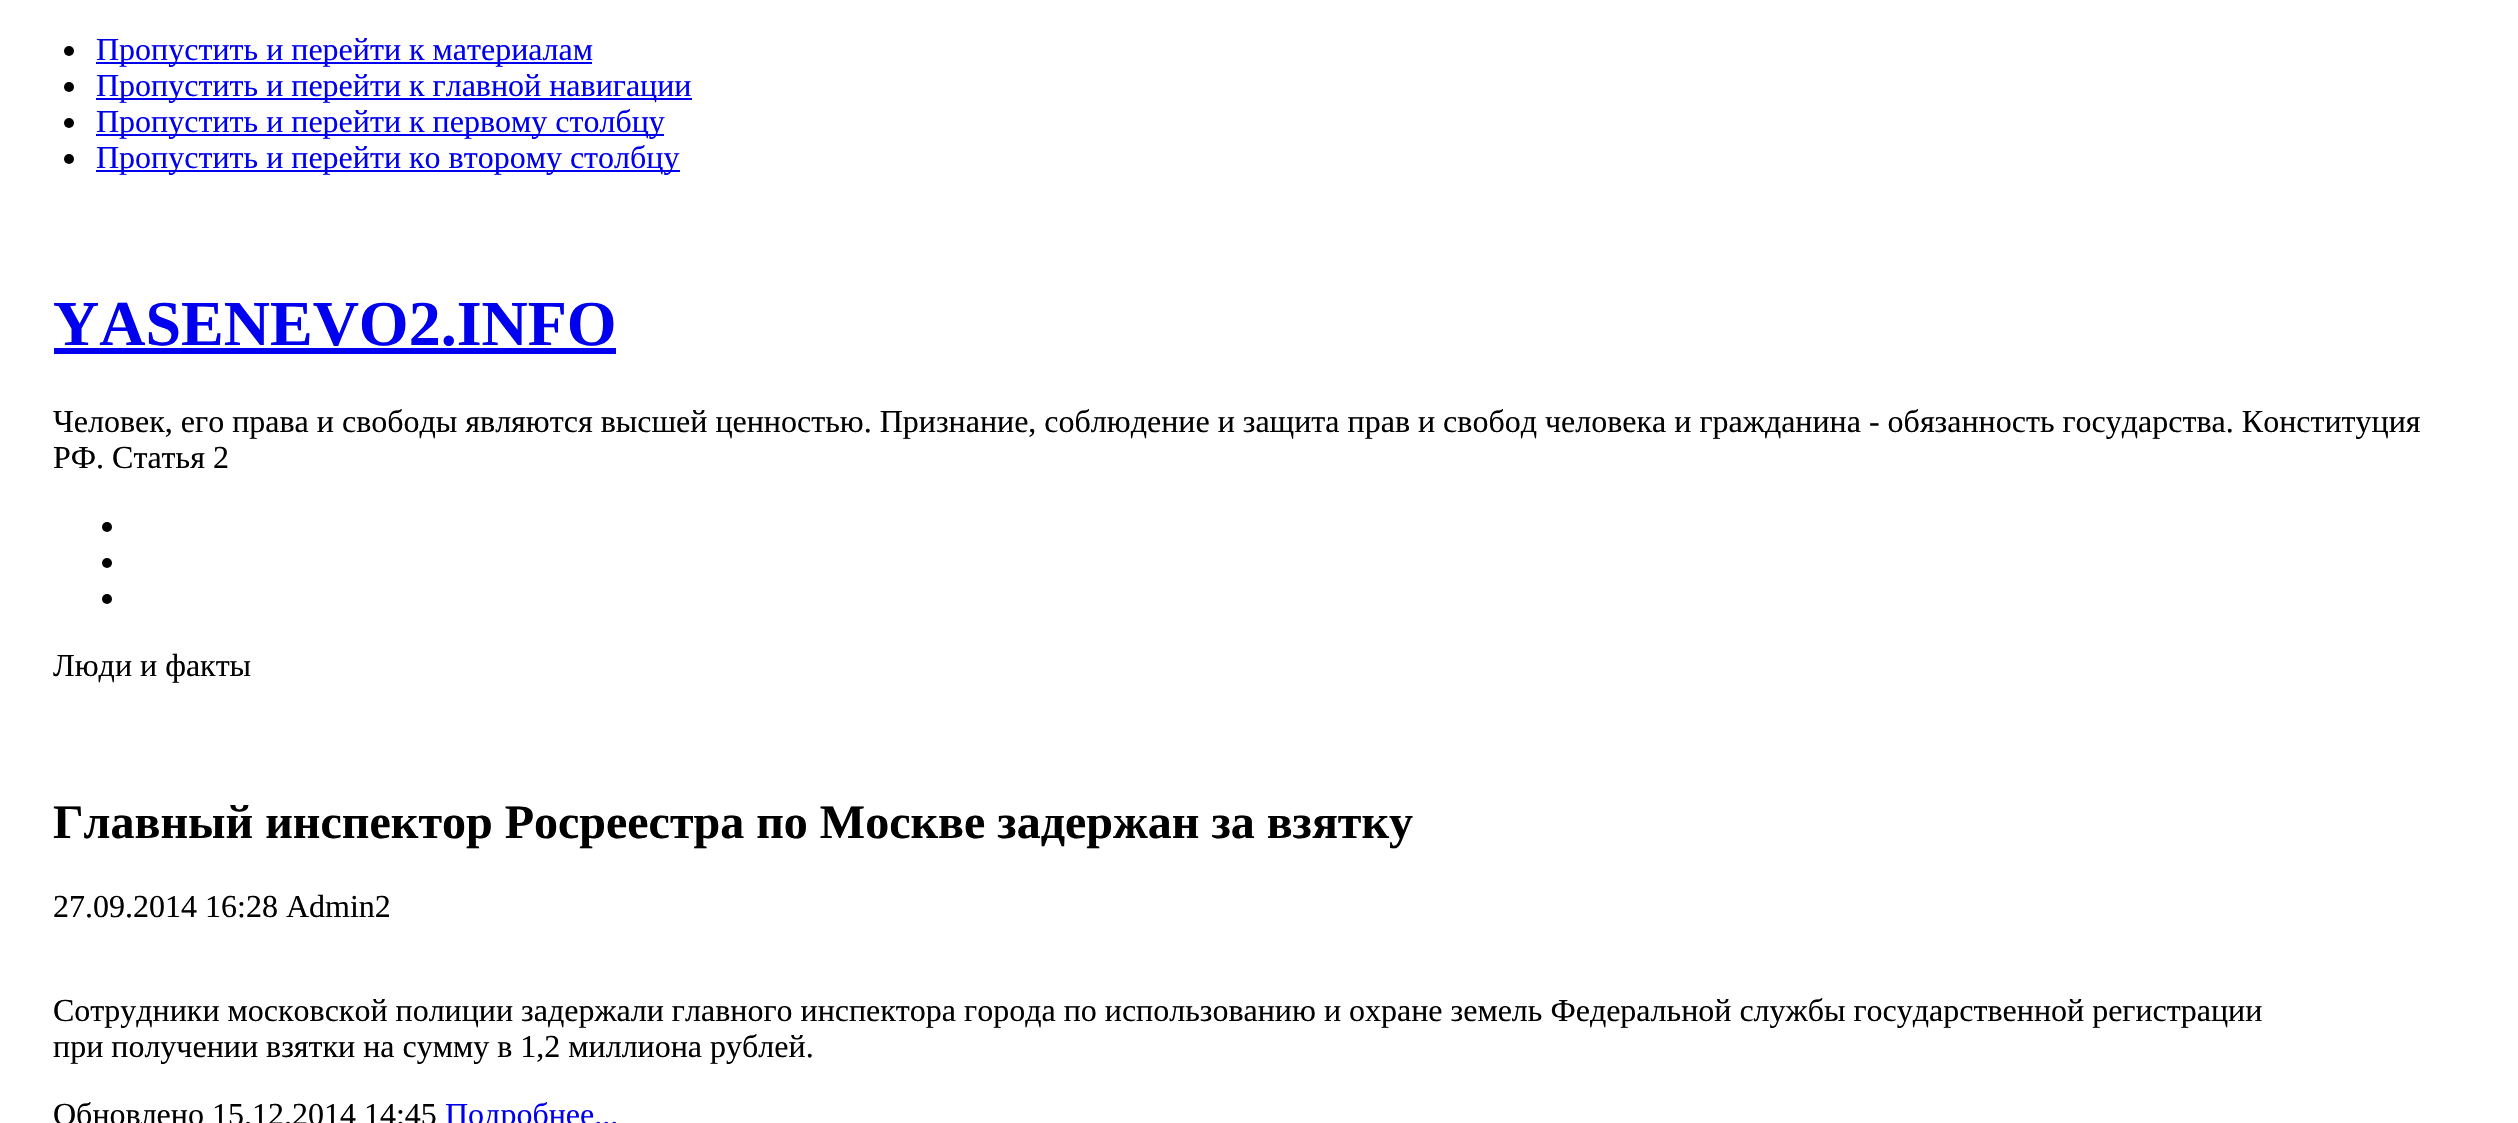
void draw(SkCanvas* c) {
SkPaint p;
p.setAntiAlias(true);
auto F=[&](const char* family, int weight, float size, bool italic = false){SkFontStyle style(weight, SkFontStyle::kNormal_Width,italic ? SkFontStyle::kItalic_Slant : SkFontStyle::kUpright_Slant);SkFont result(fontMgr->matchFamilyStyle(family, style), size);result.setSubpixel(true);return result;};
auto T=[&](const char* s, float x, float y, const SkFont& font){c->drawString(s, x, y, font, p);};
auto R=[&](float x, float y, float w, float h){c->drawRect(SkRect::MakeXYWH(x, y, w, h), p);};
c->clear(0xffffffff);
p.setColor(0xff000000);
c->drawCircle(69,51,5,p);
p.setColor(0xff0000ee);
R(96,62,496,2);
auto f1 = F("Liberation Serif",400,32);
T("Пропустить и перейти к материалам",96,60,f1);
p.setColor(0xff000000);
c->drawCircle(69,87,5,p);
p.setColor(0xff0000ee);
R(96,98,596,2);
T("Пропустить и перейти к главной навигации",96,96,f1);
p.setColor(0xff000000);
c->drawCircle(69,123,5,p);
p.setColor(0xff0000ee);
R(96,134,568,2);
T("Пропустить и перейти к первому столбцу",96,132,f1);
p.setColor(0xff000000);
c->drawCircle(69,159,5,p);
p.setColor(0xff0000ee);
R(96,170,584,2);
T("Пропустить и перейти ко второму столбцу",96,168,f1);
auto f2 = F("Liberation Serif",700,64);
T("YASENEVO2.INFO",53,345,f2);
R(54,348,562,6);
p.setColor(0xff000000);
T("Человек, его права и свободы являются высшей ценностью. Признание, соблюдение и защита прав и свобод человека и гражданина - обязанность государства. Конституция",53,432,f1);
T("РФ. Статья 2",53,468,f1);
c->drawCircle(107,527,5,p);
c->drawCircle(107,563,5,p);
c->drawCircle(107,599,5,p);
T("Люди и факты",53,676,f1);
auto f3 = F("Liberation Serif",700,48);
T("Главный инспектор Росреестра по Москве задержан за взятку",53,838,f3);
T("27.09.2014 16:28 Admin2",53,917,f1);
T("Сотрудники московской полиции задержали главного инспектора города по использованию и охране земель Федеральной службы государственной регистрации",53,1021,f1);
T("при получении взятки на сумму в 1,2 миллиона рублей.",53,1057,f1);
T("Обновлено 15.12.2014 14:45",53,1125,f1);
p.setColor(0xff0000ee);
T("Подробнее...",445,1125,f1);
}
